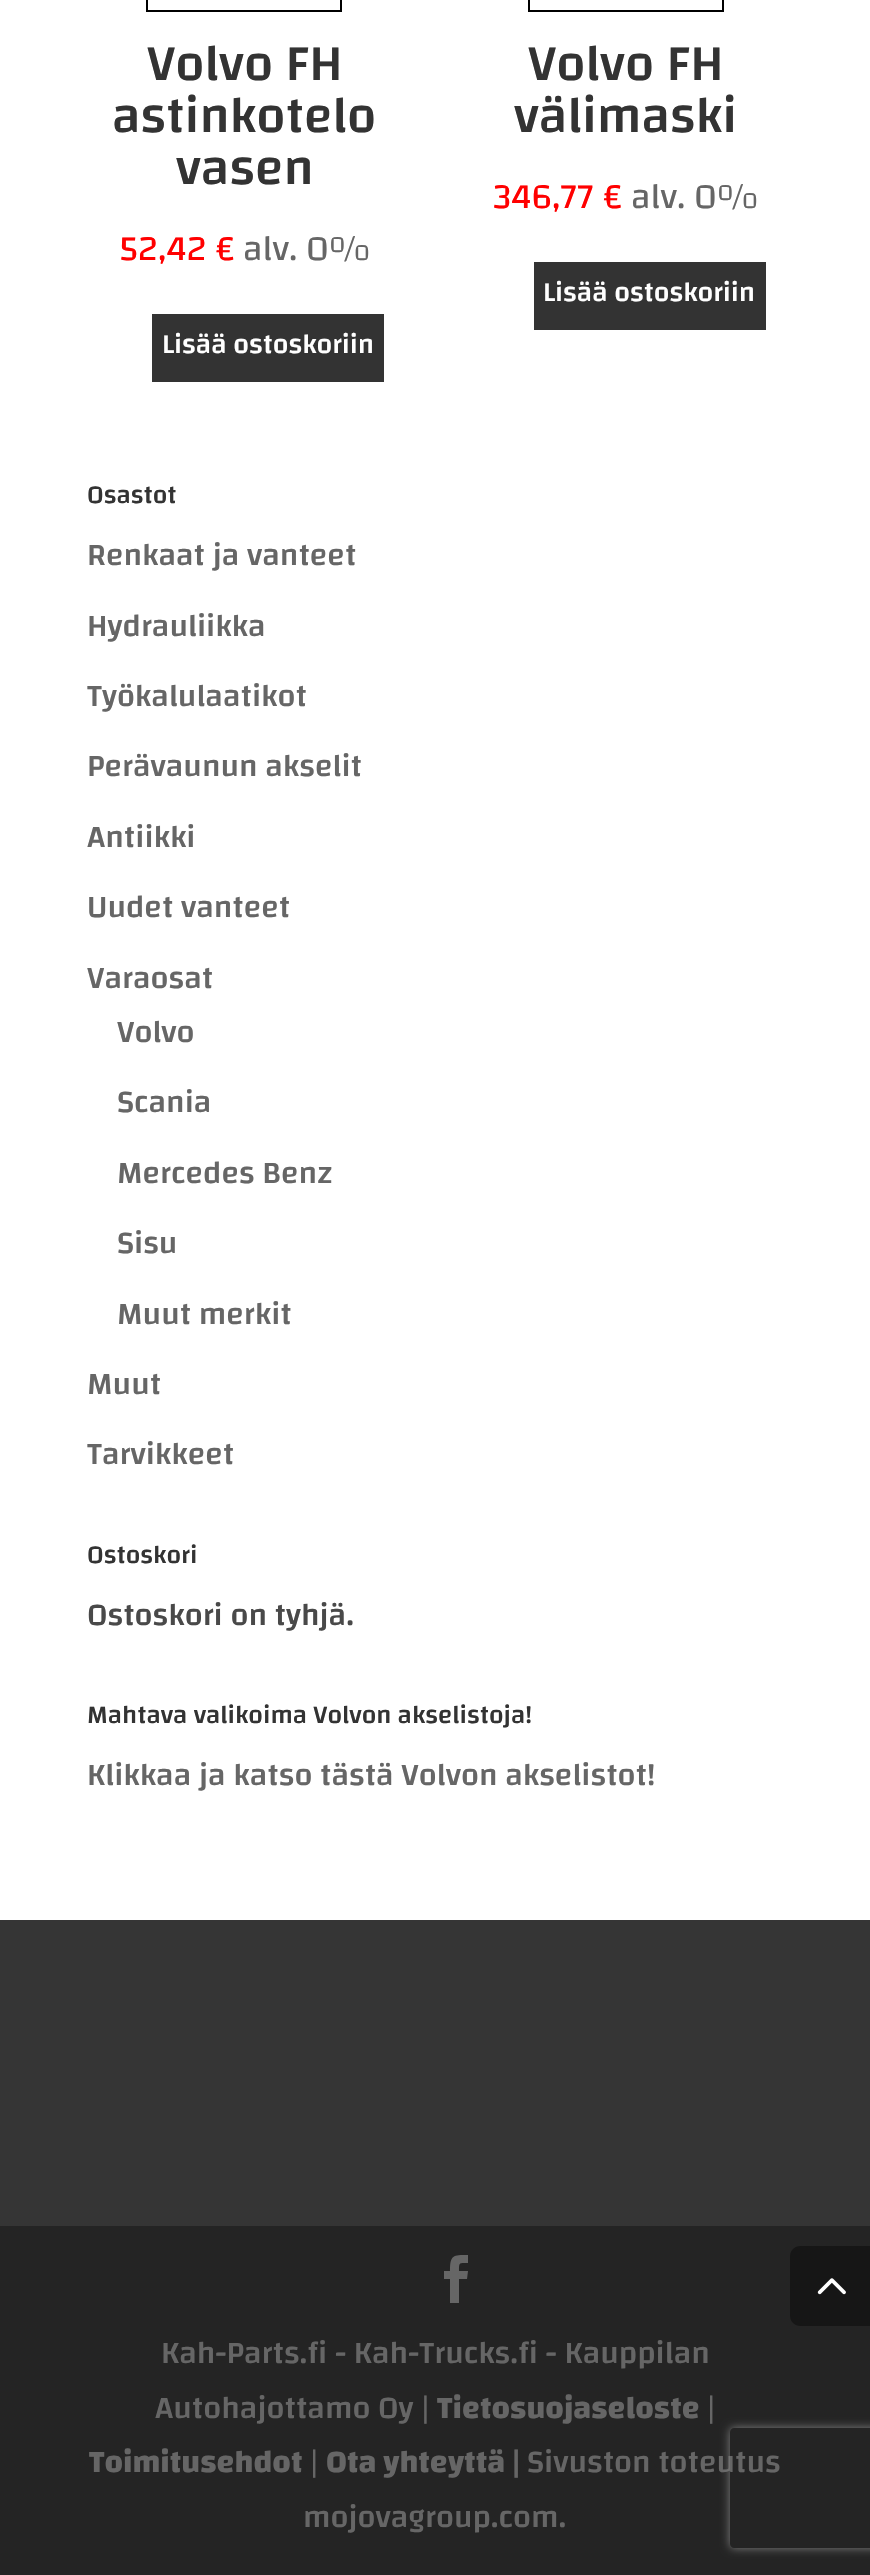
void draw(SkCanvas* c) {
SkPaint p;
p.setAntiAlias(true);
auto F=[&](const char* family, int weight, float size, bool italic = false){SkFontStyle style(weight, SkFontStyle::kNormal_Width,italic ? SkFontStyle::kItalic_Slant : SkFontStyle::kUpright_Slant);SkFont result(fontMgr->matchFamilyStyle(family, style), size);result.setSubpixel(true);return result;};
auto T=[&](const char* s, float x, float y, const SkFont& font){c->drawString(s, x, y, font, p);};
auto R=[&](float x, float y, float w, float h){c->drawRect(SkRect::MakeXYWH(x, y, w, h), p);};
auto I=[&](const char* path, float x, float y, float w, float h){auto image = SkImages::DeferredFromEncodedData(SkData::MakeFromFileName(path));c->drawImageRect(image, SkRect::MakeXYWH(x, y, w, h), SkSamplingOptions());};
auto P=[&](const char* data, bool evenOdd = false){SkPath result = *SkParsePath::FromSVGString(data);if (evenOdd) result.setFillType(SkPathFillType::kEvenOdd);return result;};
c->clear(0xffffffff);
p.setStroke(true);
p.setStrokeWidth(2);
p.setColor(0xff000000);
c->drawRect(SkRect::MakeXYWH(147,-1,194,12),p);
auto f1 = F("Changa",500,52);
p.setStroke(false);
p.setColor(0xff333333);
T("Volvo FH",147,80,f1);
T("astinkotelo",112,132,f1);
T("vasen",176,184,f1);
auto f2 = F("Changa",400,36);
p.setColor(0xffff0000);
T("52,42 €",119,260,f2);
p.setColor(0xff666666);
T("alv. 0%",243,260,f2);
p.setColor(0xff333333);
R(152,314,232,68);
auto f3 = F("Changa",500,28);
p.setColor(0xffffffff);
T("Lisää ostoskoriin",162,353,f3);
p.setStroke(true);
p.setColor(0xff000000);
c->drawRect(SkRect::MakeXYWH(529,-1,194,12),p);
p.setStroke(false);
p.setColor(0xff333333);
T("Volvo FH",528,80,f1);
T("välimaski",514,132,f1);
p.setColor(0xffff0000);
T("346,77 €",493,208,f2);
p.setColor(0xff666666);
T("alv. 0%",631,208,f2);
p.setColor(0xff333333);
R(534,262,232,68);
p.setColor(0xffffffff);
T("Lisää ostoskoriin",543,301,f3);
auto f4 = F("Changa",500,26);
p.setColor(0xff333333);
T("Osastot",87,503,f4);
auto f5 = F("Changa",500,32);
p.setColor(0xff666666);
T("Renkaat ja vanteet",87,565,f5);
T("Hydrauliikka",87,636,f5);
T("Työkalulaatikot",87,706,f5);
T("Perävaunun akselit",87,776,f5);
T("Antiikki",87,847,f5);
T("Uudet vanteet",87,917,f5);
T("Varaosat",87,988,f5);
T("Volvo",117,1042,f5);
T("Scania",117,1112,f5);
T("Mercedes Benz",117,1183,f5);
T("Sisu",117,1253,f5);
T("Muut merkit",117,1324,f5);
T("Muut",87,1394,f5);
T("Tarvikkeet",87,1464,f5);
p.setColor(0xff333333);
T("Ostoskori",87,1563,f4);
p.setColor(0xff494949);
T("Ostoskori on tyhjä.",87,1625,f5);
p.setColor(0xff333333);
T("Mahtava valikoima Volvon akselistoja!",87,1723,f4);
p.setColor(0xff666666);
T("Klikkaa ja katso tästä Volvon akselistot!",87,1785,f5);
p.setColor(0xff242424);
R(0,2226,870,349);
p.setColor(0xff161616);
c->drawPath(P("M800 2246h70v80h-70c-5.5 0-10-4.5-10-10v-60c0-5.5 4.5-10 10-10z"),p);
I("1.png",817,2278,29,17);
p.setColor(0xff353535);
R(0,1920,870,306);
p.setColor(0xff666666);
c->drawPath(P("M450 2303h9v-24h8l1-8h-9c0-9 0-8 9-8v-8c-15 0-18 0-18 16h-6v8h6z"),p);
T("Kah-Parts.fi - Kah-Trucks.fi - Kauppilan",161,2363,f5);
T("Autohajottamo Oy |",155,2418,f5);
auto f6 = F("Changa",700,32);
T("Tietosuojaseloste",437,2418,f6);
T("|",707,2418,f5);
T("Toimitusehdot",89,2472,f6);
T("|",310,2472,f5);
T("Ota yhteyttä |",326,2472,f6);
T("Sivuston toteutus",527,2472,f5);
T("mojovagroup.com.",303,2527,f5);
c->save();
c->clipPath(P("M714 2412h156v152h-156zm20 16h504c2 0 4 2 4 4v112c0 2-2 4-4 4h-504c-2 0-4-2-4-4v-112c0-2 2-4 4-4z",true),true);
p.setColor(0xff808080);
p.setMaskFilter(SkMaskFilter::MakeBlur(kNormal_SkBlurStyle, 5));
c->drawRoundRect(SkRect::MakeXYWH(730,2428,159,120),4,4,p);
p.setMaskFilter(nullptr);
c->restore();
}
